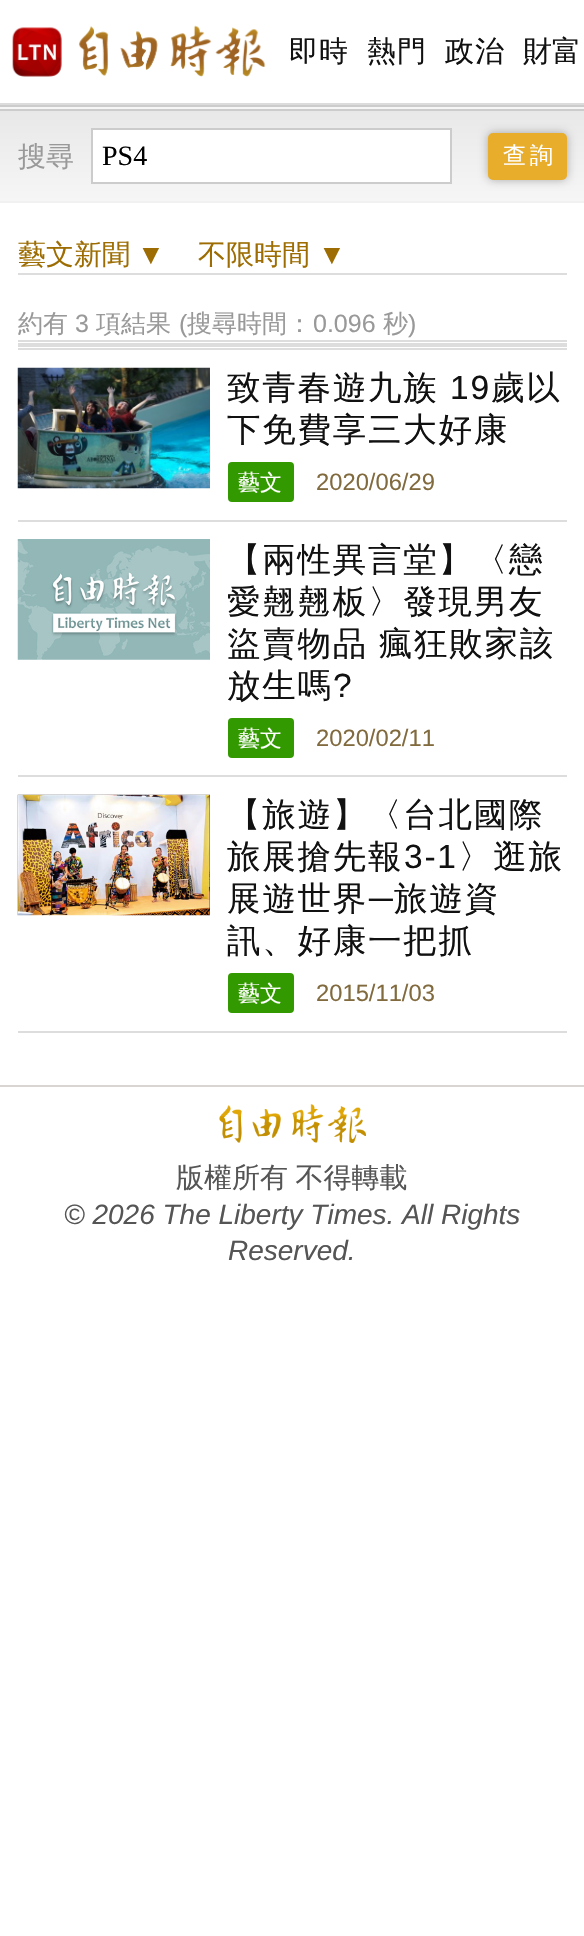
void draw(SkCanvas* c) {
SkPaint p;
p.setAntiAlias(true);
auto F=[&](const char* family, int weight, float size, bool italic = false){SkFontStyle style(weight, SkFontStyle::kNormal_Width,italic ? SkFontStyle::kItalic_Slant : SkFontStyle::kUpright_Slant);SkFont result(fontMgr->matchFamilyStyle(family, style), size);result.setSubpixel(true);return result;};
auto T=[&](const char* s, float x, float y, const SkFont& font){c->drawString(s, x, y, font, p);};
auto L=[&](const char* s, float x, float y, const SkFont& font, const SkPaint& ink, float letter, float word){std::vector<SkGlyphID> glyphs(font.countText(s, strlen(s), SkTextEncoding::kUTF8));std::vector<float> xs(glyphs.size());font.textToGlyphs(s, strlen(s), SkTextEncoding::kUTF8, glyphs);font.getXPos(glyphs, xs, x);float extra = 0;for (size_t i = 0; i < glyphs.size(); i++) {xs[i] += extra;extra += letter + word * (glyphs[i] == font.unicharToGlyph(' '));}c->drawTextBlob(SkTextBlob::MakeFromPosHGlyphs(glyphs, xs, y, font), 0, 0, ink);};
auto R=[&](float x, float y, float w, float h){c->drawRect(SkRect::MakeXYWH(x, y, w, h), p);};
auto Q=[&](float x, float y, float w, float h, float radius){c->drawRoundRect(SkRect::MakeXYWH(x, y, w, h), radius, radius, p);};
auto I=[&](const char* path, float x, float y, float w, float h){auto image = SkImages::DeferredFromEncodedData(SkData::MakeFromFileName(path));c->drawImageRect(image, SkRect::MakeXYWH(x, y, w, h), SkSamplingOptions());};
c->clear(0xffffffff);
p.setColor(0xffdcdcdc);
R(0,103,584,2);
I("1.png",12,25,254,52);
auto f1 = F("WenQuanYi Zen Hei",500,29);
p.setColor(0xff111111);
L("即時",289,61,f1,p,1,0);
L("熱門",367,61,f1,p,1,0);
L("政治",445,61,f1,p,1,0);
T("財富",523,61,f1);
{
const SkColor colors[] = {0xffe8e8e8,0xfff6f6f6};
const float stops[] = {0,1};
const SkPoint ends[] = {{292,19}, {292,110}};
p.setShader(SkGradientShader::MakeLinear(ends, colors, stops, 2, SkTileMode::kClamp));
p.setAlpha(255);
}
R(0,107,584,2);
{
const SkColor colors[] = {0xffe8e8e8,0xfff6f6f6};
const float stops[] = {0,1};
const SkPoint ends[] = {{292,110}, {292,201}};
p.setShader(SkGradientShader::MakeLinear(ends, colors, stops, 2, SkTileMode::kClamp));
p.setAlpha(255);
}
R(0,111,584,90);
p.setShader(nullptr);
p.setColor(0xffcccccc);
R(0,105,584,2);
R(0,109,584,2);
p.setColor(0xfff1f1f1);
R(0,201,584,2);
auto f2 = F("WenQuanYi Zen Hei",500,28);
p.setColor(0xff999999);
T("搜尋",18,166,f2);
p.setColor(0xffffffff);
c->drawRect(SkRect::MakeXYWH(92,129,359,54),p);
p.setStroke(true);
p.setStrokeWidth(2);
p.setColor(0xffcccccc);
c->drawRect(SkRect::MakeXYWH(92,129,359,54),p);
auto f3 = F("Liberation Serif",400,28);
p.setStroke(false);
p.setColor(0xff000000);
T("PS4",102,165,f3);
p.setColor(0x4d000000);
p.setMaskFilter(SkMaskFilter::MakeBlur(kNormal_SkBlurStyle, 5));
c->drawRoundRect(SkRect::MakeXYWH(488,133,79,47),5,5,p);
p.setMaskFilter(nullptr);
p.setColor(0xffe8ae2b);
c->drawRoundRect(SkRect::MakeXYWH(489,134,77,45),4,4,p);
p.setStroke(true);
c->drawRoundRect(SkRect::MakeXYWH(489,134,77,45),4,4,p);
auto f4 = F("WenQuanYi Zen Hei",500,23);
p.setStroke(false);
p.setColor(0xffffffff);
L("查詢",503,163,f4,p,4,0);
p.setColor(0xffdddddd);
R(18,273,549,2);
p.setColor(0xff9d6d03);
T("藝文新聞",18,264,f2);
auto f5 = F("Liberation Sans",400,28);
T("▼",137,264,f5);
T("不限時間",198,264,f2);
T("▼",318,264,f5);
p.setColor(0xffdddddd);
R(18,340,549,2);
auto f6 = F("WenQuanYi Zen Hei",500,25);
p.setColor(0xff999999);
T("約有",18,332,f6);
auto f7 = F("Liberation Sans",400,25);
T("3",75,332,f7);
T("項結果",96,332,f6);
T("(",179,332,f7);
T("搜尋時間：",187,332,f6);
T("0.096",313,332,f7);
T("秒",383,332,f6);
T(")",408,332,f7);
p.setColor(0xffdddddd);
R(18,343,549,4);
R(18,348,549,2);
R(18,520,549,2);
I("2.png",17,367,193,122);
auto f8 = F("WenQuanYi Zen Hei",500,33.5);
p.setColor(0xff111111);
L("致青春遊九族",227,399,f8,p,1.75,0);
auto f9 = F("Liberation Sans",400,33.5);
L("19",450,399,f9,p,1.75,0);
L("歲以",491,399,f8,p,1.75,0);
L("下免費享三大好康",227,441,f8,p,1.75,0);
p.setColor(0xff339900);
Q(228,462,66,40,4);
auto f10 = F("WenQuanYi Zen Hei",500,22);
p.setColor(0xffffffff);
T("藝文",238,490,f10);
auto f11 = F("Liberation Sans",400,23.75);
p.setColor(0xff816a3e);
T("2020/06/29",316,490,f11);
p.setColor(0xffdddddd);
R(18,775,549,2);
I("3.png",17,539,193,121);
p.setColor(0xff111111);
L("【兩性異言堂】〈戀",227,571,f8,p,1.75,0);
L("愛翹翹板〉發現男友",227,613,f8,p,1.75,0);
L("盜賣物品 瘋狂敗家該",227,655,f8,p,1.75,-1);
L("放生嗎",227,697,f8,p,1.75,0);
L("?",333,697,f9,p,1.75,0);
p.setColor(0xff339900);
Q(228,718,66,40,4);
p.setColor(0xffffffff);
T("藝文",238,746,f10);
p.setColor(0xff816a3e);
T("2020/02/11",316,746,f11);
p.setColor(0xffdddddd);
R(18,1031,549,2);
I("4.png",17,794,193,122);
p.setColor(0xff111111);
L("【旅遊】〈台北國際",227,826,f8,p,1.75,0);
L("旅展搶先報",227,868,f8,p,1.75,0);
L("3-1",404,868,f9,p,1.75,0);
L("〉逛旅",458,868,f8,p,1.75,0);
L("展遊世界",227,910,f8,p,1.75,0);
L("─",369,910,f9,p,1.75,0);
L("旅遊資",394,910,f8,p,1.75,0);
L("訊、好康一把抓",227,952,f8,p,1.75,0);
p.setColor(0xff339900);
Q(228,973,66,40,4);
p.setColor(0xffffffff);
T("藝文",238,1001,f10);
p.setColor(0xff816a3e);
T("2015/11/03",316,1001,f11);
p.setColor(0xffd8d5d3);
R(0,1085,584,2);
I("5.png",219,1104,147,39);
p.setColor(0xff555555);
L("版權所有 不得轉載",176,1187,f2,p,0,-1);
auto f12 = F("Liberation Sans",400,28,true);
T("© 2026 The Liberty Times. All Rights",64,1224,f12);
T("Reserved.",228,1260,f12);
}
